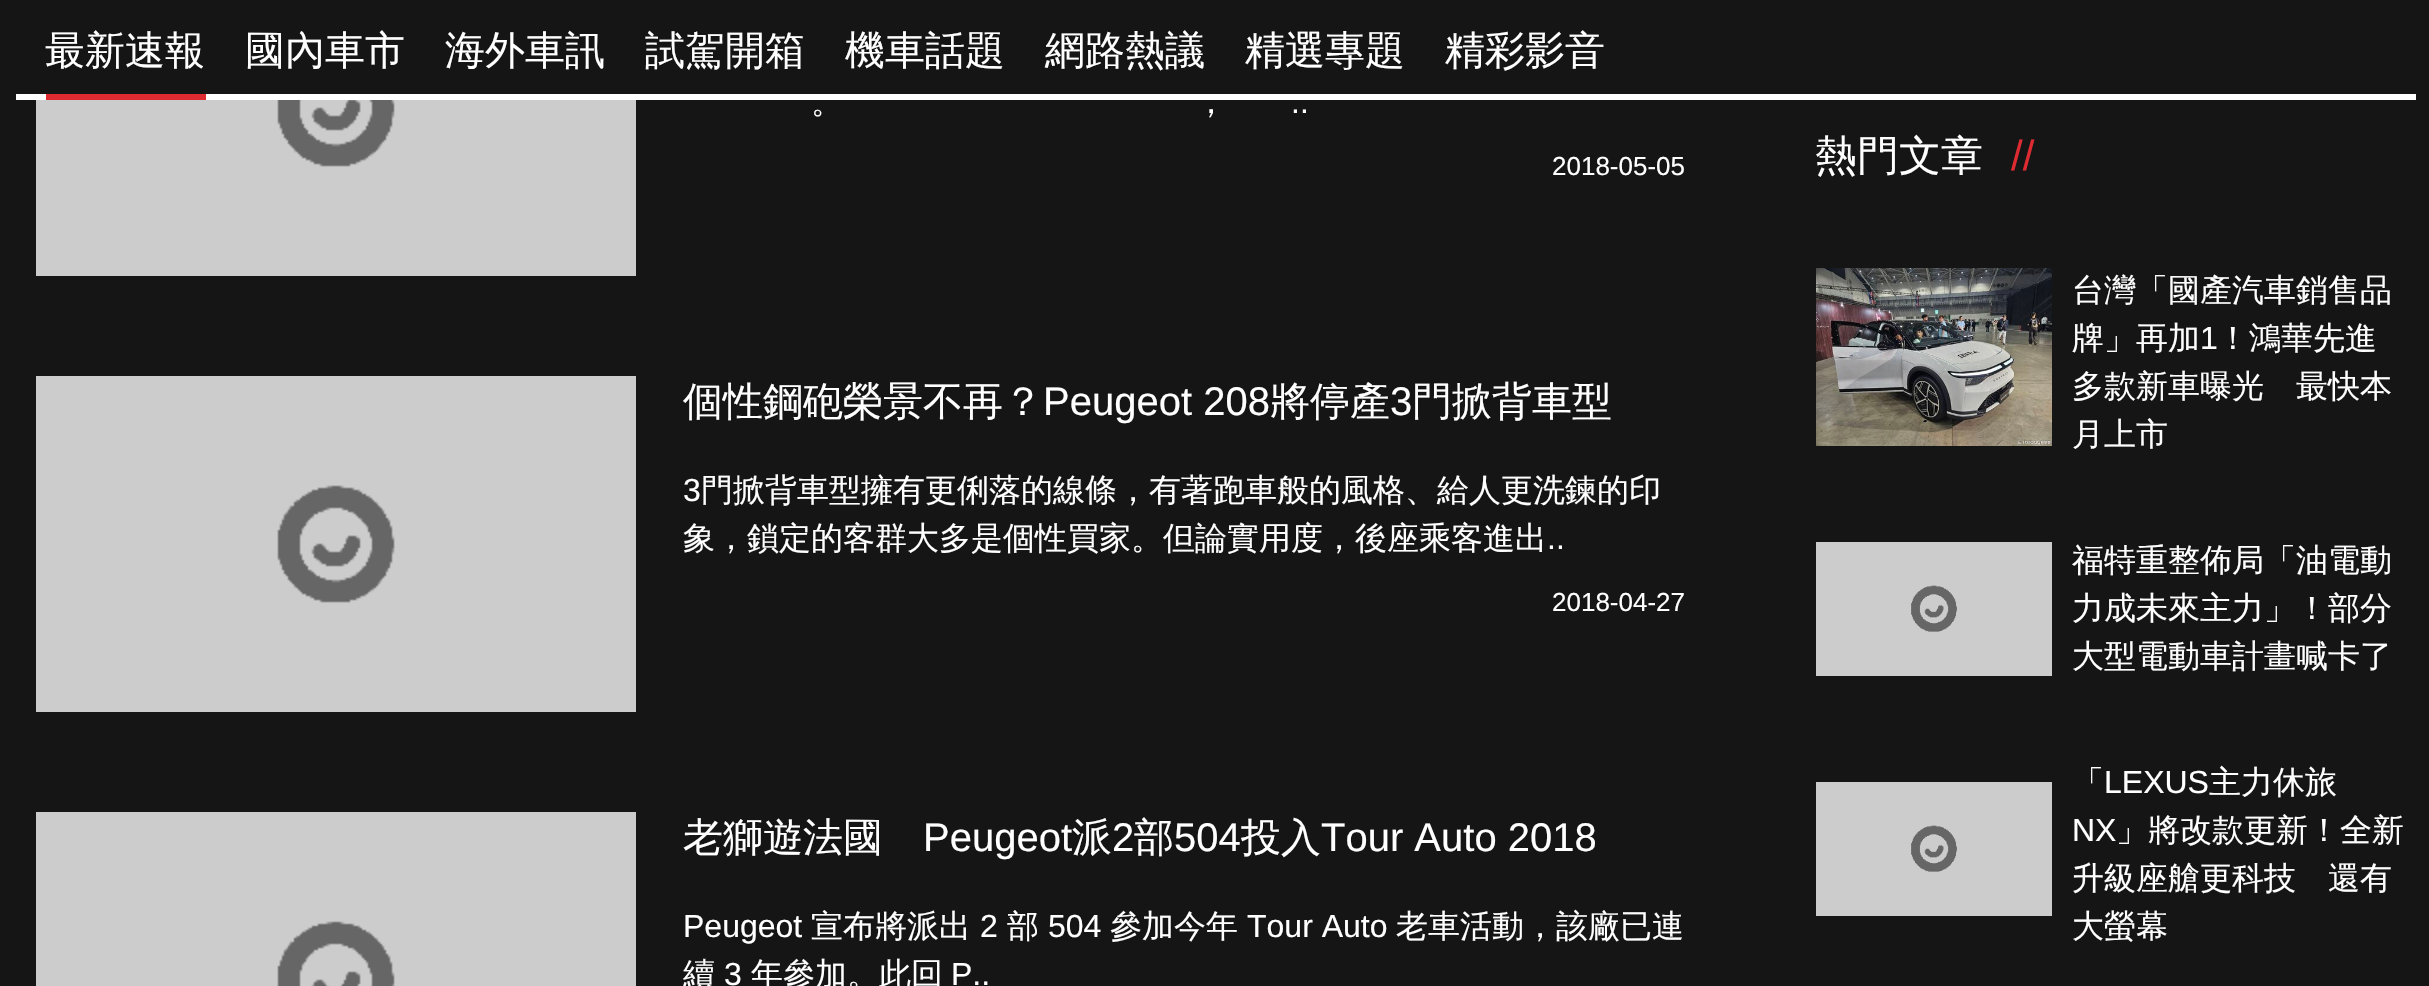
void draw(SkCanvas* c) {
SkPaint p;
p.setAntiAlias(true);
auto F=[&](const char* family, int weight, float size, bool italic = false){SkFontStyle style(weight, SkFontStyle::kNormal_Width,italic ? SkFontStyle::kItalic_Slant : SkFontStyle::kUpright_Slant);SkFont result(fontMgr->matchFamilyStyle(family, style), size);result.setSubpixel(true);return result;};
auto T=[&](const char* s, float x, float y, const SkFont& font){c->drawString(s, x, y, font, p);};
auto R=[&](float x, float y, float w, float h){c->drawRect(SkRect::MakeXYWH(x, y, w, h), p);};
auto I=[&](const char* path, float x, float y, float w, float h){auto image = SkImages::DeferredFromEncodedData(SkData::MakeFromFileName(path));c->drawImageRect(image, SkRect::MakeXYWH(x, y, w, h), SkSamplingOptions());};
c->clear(0xff151515);
p.setColor(0xffffffff);
R(16,94,2400,6);
auto f1 = F("WenQuanYi Zen Hei",500,40);
T("最新速報",45,64,f1);
p.setColor(0xffde2b31);
R(46,94,160,6);
p.setColor(0xffffffff);
T("國內車市",245,64,f1);
T("海外車訊",445,64,f1);
T("試駕開箱",645,64,f1);
T("機車話題",845,64,f1);
T("網路熱議",1045,64,f1);
T("精選專題",1245,64,f1);
T("精彩影音",1445,64,f1);
I("1.png",36,100,600,176);
auto f2 = F("WenQuanYi Zen Hei",500,32);
T("。",811,113,f2);
T("，",1195,113,f2);
auto f3 = F("Liberation Sans",400,32);
T("..",1291,113,f3);
auto f4 = F("Liberation Sans",400,26);
T("2018-05-05",1552,175,f4);
I("2.png",36,376,600,336);
T("個性鋼砲榮景不再？",683,415,f1);
auto f5 = F("Liberation Sans",400,40);
T("Peugeot 208",1043,415,f5);
T("將停產",1270,415,f1);
T("3",1390,415,f5);
T("門掀背車型",1412,415,f1);
T("3",683,501,f3);
T("門掀背車型擁有更俐落的線條，有著跑車般的風格、給人更洗鍊的印",701,501,f2);
T("象，鎖定的客群大多是個性買家。但論實用度，後座乘客進出",683,549,f2);
T("..",1547,549,f3);
T("2018-04-27",1552,611,f4);
I("3.png",36,812,600,174);
T("老獅遊法國",683,851,f1);
T("Peugeot",923,851,f5);
T("派",1072,851,f1);
T("2",1112,851,f5);
T("部",1134,851,f1);
T("504",1174,851,f5);
T("投入",1241,851,f1);
T("Tour Auto 2018",1321,851,f5);
T("Peugeot",683,937,f3);
T("宣布將派出",811,937,f2);
T("2",980,937,f3);
T("部",1007,937,f2);
T("504",1048,937,f3);
T("參加今年",1110,937,f2);
T("Tour Auto",1247,937,f3);
T("老車活動，該廠已連",1396,937,f2);
T("續",683,985,f2);
T("3",724,985,f3);
T("年參加。此回",751,985,f2);
T("P..",951,985,f3);
auto f6 = F("WenQuanYi Zen Hei",500,42);
T("熱門文章",1815,170,f6);
auto f7 = F("Liberation Sans",400,42);
p.setColor(0xffde2b31);
T("//",2011,170,f7);
I("4.png",1816,268,236,178);
p.setColor(0xffffffff);
T("台灣「國產汽車銷售品",2072,301,f2);
T("牌」再加",2072,349,f2);
T("1",2200,349,f3);
T("！鴻華先進",2217,349,f2);
T("多款新車曝光　最快本",2072,397,f2);
T("月上市",2072,445,f2);
I("5.png",1816,542,236,134);
T("福特重整佈局「油電動",2072,571,f2);
T("力成未來主力」！部分",2072,619,f2);
T("大型電動車計畫喊卡了",2072,667,f2);
I("5.png",1816,782,236,134);
T("「",2072,793,f2);
T("LEXUS",2104,793,f3);
T("主力休旅",2209,793,f2);
T("NX",2072,841,f3);
T("」將改款更新！全新",2116,841,f2);
T("升級座艙更科技　還有",2072,889,f2);
T("大螢幕",2072,937,f2);
}
